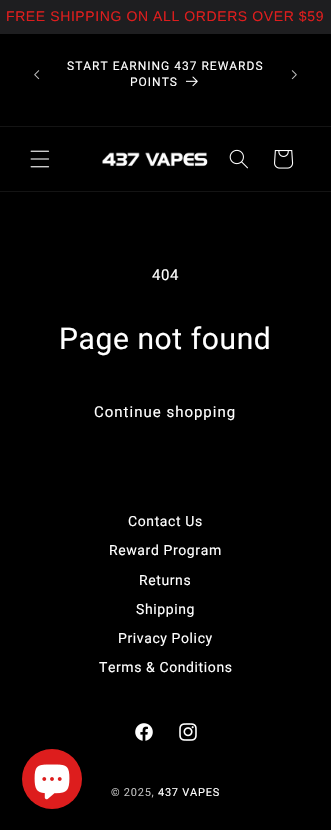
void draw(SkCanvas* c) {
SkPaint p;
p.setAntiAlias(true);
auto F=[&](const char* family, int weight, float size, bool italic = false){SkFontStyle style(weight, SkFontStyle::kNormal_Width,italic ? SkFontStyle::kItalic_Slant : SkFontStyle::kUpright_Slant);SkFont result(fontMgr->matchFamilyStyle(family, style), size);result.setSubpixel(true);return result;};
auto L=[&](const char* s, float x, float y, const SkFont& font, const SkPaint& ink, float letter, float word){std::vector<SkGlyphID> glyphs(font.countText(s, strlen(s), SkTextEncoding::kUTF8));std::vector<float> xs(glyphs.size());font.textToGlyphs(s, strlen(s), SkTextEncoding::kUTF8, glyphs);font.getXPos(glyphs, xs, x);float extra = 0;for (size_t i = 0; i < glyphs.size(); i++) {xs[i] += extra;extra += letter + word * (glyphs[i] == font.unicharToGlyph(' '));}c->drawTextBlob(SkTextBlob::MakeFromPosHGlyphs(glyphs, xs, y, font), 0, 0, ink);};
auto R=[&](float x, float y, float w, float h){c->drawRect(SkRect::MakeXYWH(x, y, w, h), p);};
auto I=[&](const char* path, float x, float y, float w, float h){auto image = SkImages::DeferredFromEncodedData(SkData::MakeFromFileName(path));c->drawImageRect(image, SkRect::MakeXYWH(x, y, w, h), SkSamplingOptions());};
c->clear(0xff000000);
p.setColor(0xff1e1e20);
R(0,0,331,34);
auto f1 = F("Liberation Sans",400,14);
p.setColor(0xffdd1d1d);
L("FREE SHIPPING ON ALL ORDERS OVER $59",6,21,f1,p,.6,0);
p.setColor(0xff141414);
R(0,126,331,1);
I("1.png",34,70,6,10);
auto f2 = F("Roboto",400,12);
p.setColor(0xffffffff);
L("START EARNING 437 REWARDS",67,70,f2,p,1,0);
L("POINTS",130,86,f2,p,1,0);
I("2.png",186,76,12,11);
I("3.png",291,70,6,10);
p.setColor(0xff141414);
R(0,191,331,1);
I("4.png",30,150,20,18);
I("5.png",102,152,106,15);
I("6.png",229,149,19,20);
I("7.png",274,150,20,19);
auto f3 = F("Roboto",400,15);
p.setColor(0xffffffff);
L("404",152,280,f3,p,.6,0);
auto f4 = F("Roboto",400,30);
L("Page not found",59,349,f4,p,.6,0);
L("Continue shopping",94,417,f3,p,1,0);
p.setColor(0xffdd1d1d);
c->drawCircle(52,779,30,p);
I("8.png",34,764,36,36);
auto f5 = F("Roboto",400,14);
p.setColor(0xffffffff);
L("Contact Us",128,526,f5,p,.6,0);
L("Reward Program",109,555,f5,p,.6,0);
L("Returns",139,585,f5,p,.6,0);
L("Shipping",136,614,f5,p,.6,0);
L("Privacy Policy",118,643,f5,p,.6,0);
L("Terms & Conditions",99,672,f5,p,.6,0);
I("9.png",135,723,18,18);
I("10.png",179,723,18,18);
auto f6 = F("Roboto",400,11);
p.setColor(0xffbfbfbf);
L("© 2025,",111,796,f6,p,.75,0);
p.setColor(0xffffffff);
L("437 VAPES",158,796,f6,p,.75,0);
}
